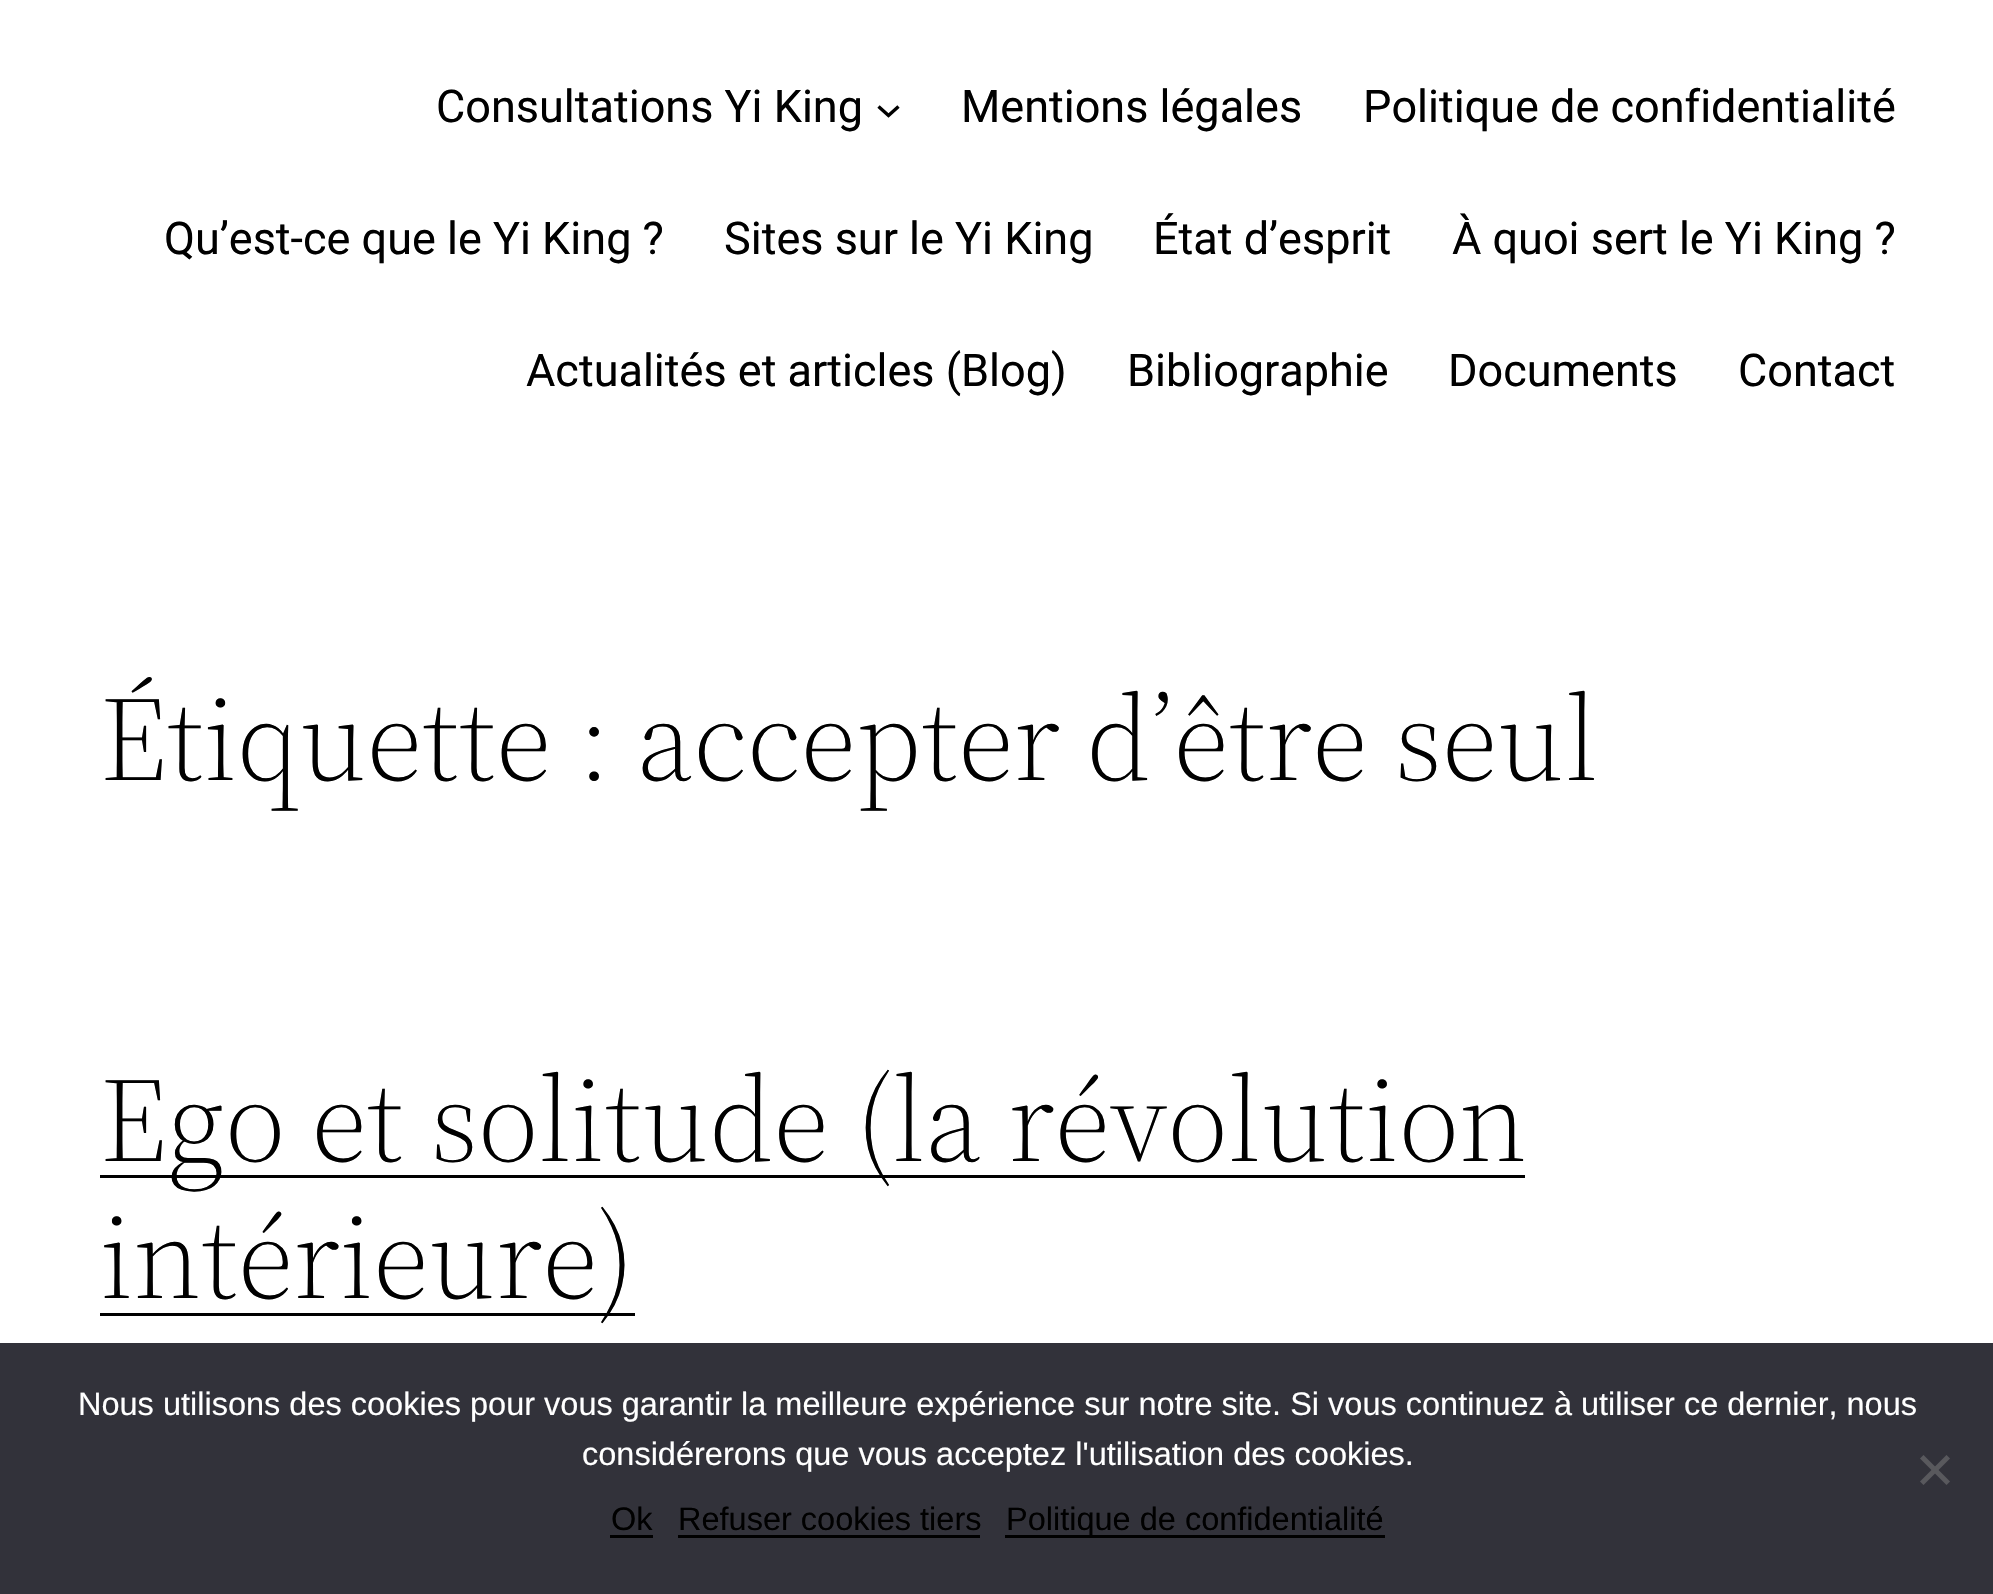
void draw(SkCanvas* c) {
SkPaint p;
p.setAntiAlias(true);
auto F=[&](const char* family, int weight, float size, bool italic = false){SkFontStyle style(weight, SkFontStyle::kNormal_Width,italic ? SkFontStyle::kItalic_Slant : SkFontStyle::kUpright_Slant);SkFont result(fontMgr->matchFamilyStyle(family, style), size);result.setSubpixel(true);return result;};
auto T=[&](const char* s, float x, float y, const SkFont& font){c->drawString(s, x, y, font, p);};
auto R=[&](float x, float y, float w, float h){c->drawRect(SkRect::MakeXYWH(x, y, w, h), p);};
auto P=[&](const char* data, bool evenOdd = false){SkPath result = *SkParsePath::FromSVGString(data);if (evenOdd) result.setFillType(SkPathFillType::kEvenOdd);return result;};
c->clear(0xffffffff);
auto f1 = F("Roboto",400,45);
p.setColor(0xff000000);
T("Consultations Yi King",436,122,f1);
p.setStroke(true);
p.setStrokeWidth(3.4);
c->drawPath(P("M878.5 106.5l10 9l10-9"),p);
p.setStroke(false);
T("Mentions légales",961,122,f1);
T("Politique de confidentialité",1363,122,f1);
T("Qu’est-ce que le Yi King ?",164,254,f1);
T("Sites sur le Yi King",724,254,f1);
T("État d’esprit",1153,254,f1);
T("À quoi sert le Yi King ?",1452,254,f1);
T("Actualités et articles (Blog)",526,386,f1);
T("Bibliographie",1127,386,f1);
T("Documents",1448,386,f1);
T("Contact",1738,386,f1);
auto f2 = F("Source Serif 4",300,119.75);
T("Étiquette : accepter d’être seul",100,780,f2);
R(100,1175,1425,3);
T("Ego et solitude (la révolution",100,1161,f2);
R(100,1313,535,3);
T("intérieure)",100,1298,f2);
p.setColor(0xff32323a);
R(0,1343,1993,251);
auto f3 = F("Liberation Sans",400,32.5);
p.setColor(0xffffffff);
T("Nous utilisons des cookies pour vous garantir la meilleure expérience sur notre site. Si vous continuez à utiliser ce dernier, nous",78,1415,f3);
T("considérerons que vous acceptez l'utilisation des cookies.",582,1465,f3);
p.setColor(0xff59595d);
c->drawPath(P("M1946.5 1455l3.5 3.5l-26.5 26.5l-3.5-3.5z"),p);
c->drawPath(P("M1920 1458.5l3.5-3.5l26.5 26.5l-3.5 3.5z"),p);
p.setColor(0xff000000);
T("Ok",611,1530,f3);
R(610,1535,43,3);
T("Refuser cookies tiers",678,1530,f3);
R(678,1535,302,3);
R(1005,1535,380,3);
T("Politique de confidentialité",1006,1530,f3);
}
